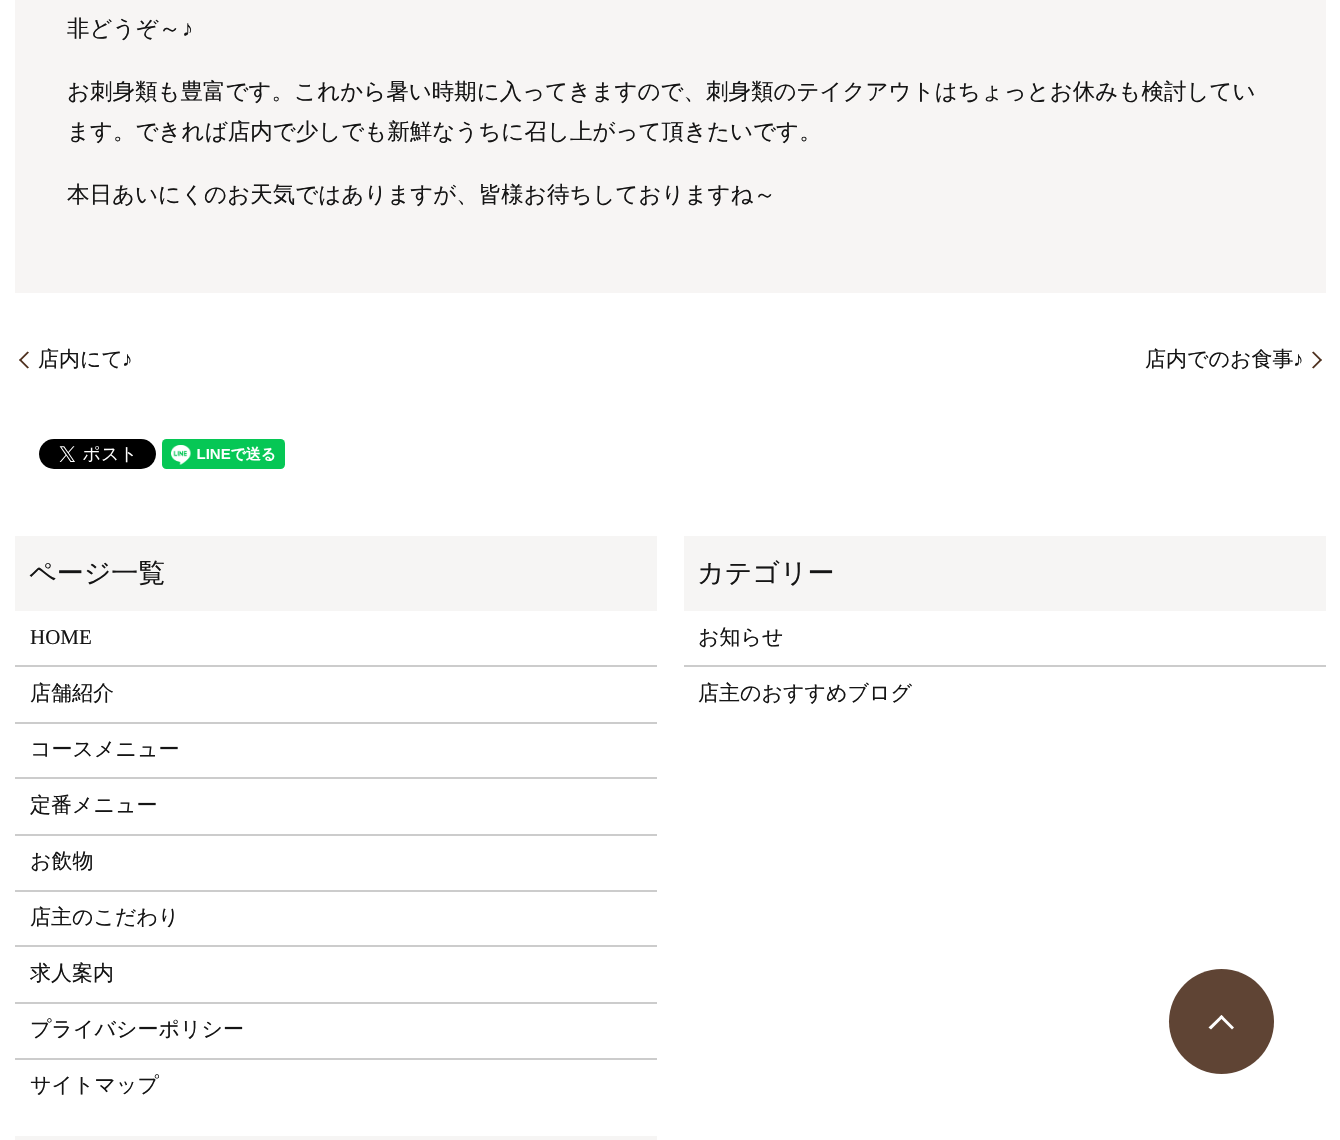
void draw(SkCanvas* c) {
SkPaint p;
p.setAntiAlias(true);
auto F=[&](const char* family, int weight, float size, bool italic = false){SkFontStyle style(weight, SkFontStyle::kNormal_Width,italic ? SkFontStyle::kItalic_Slant : SkFontStyle::kUpright_Slant);SkFont result(fontMgr->matchFamilyStyle(family, style), size);result.setSubpixel(true);return result;};
auto T=[&](const char* s, float x, float y, const SkFont& font){c->drawString(s, x, y, font, p);};
auto R=[&](float x, float y, float w, float h){c->drawRect(SkRect::MakeXYWH(x, y, w, h), p);};
auto I=[&](const char* path, float x, float y, float w, float h){auto image = SkImages::DeferredFromEncodedData(SkData::MakeFromFileName(path));c->drawImageRect(image, SkRect::MakeXYWH(x, y, w, h), SkSamplingOptions());};
auto P=[&](const char* data, bool evenOdd = false){SkPath result = *SkParsePath::FromSVGString(data);if (evenOdd) result.setFillType(SkPathFillType::kEvenOdd);return result;};
c->clear(0xffffffff);
p.setColor(0xfff7f5f4);
R(15,0,1311,293);
auto f1 = F("WenQuanYi Zen Hei",500,22.5);
p.setColor(0xff151515);
T("非どうぞ～",67,36,f1);
auto f2 = F("Liberation Serif",400,22.5);
T("♪",182,36,f2);
T("お刺身類も豊富です。これから暑い時期に入ってきますので、刺身類のテイクアウトはちょっとお休みも検討してい",67,99,f1);
T("ます。できれば店内で少しでも新鮮なうちに召し上がって頂きたいです。",67,139,f1);
T("本日あいにくのお天気ではありますが、皆様お待ちしておりますね～",67,202,f1);
p.setColor(0xff4d2f1d);
c->drawPath(P("M19 360l8.5-8.5l1.5 1l-8.5 8.5z"),p);
auto f3 = F("WenQuanYi Zen Hei",500,21);
p.setColor(0xff151515);
T("店内にて",38,366,f3);
auto f4 = F("Liberation Serif",400,21);
T("♪",122,366,f4);
p.setColor(0xff4d2f1d);
c->drawPath(P("M27.5 368.5l-8.5-8.5l1.5-1l8.5 8.5z"),p);
p.setColor(0xff151515);
T("店内でのお食事",1145,366,f3);
T("♪",1293,366,f4);
p.setColor(0xff4d2f1d);
c->drawPath(P("M1313.5 351.5l8.5 8.5l-1.5 1l-8.5-8.5z"),p);
c->drawPath(P("M1322 360l-8.5 8.5l-1.5-1l8.5-8.5z"),p);
I("1.png",39,439,117,30);
I("2.png",162,439,123,30);
p.setColor(0xfff6f5f4);
R(15,536,642,75);
auto f5 = F("WenQuanYi Zen Hei",500,27);
p.setColor(0xff151515);
T("ページ一覧",29,582,f5);
p.setColor(0xffcccccc);
R(15,665,642,2);
p.setColor(0xff151515);
T("HOME",30,644,f4);
p.setColor(0xffcccccc);
R(15,722,642,2);
p.setColor(0xff151515);
T("店舗紹介",30,700,f3);
p.setColor(0xffcccccc);
R(15,777,642,2);
p.setColor(0xff151515);
T("コースメニュー",30,756,f3);
p.setColor(0xffcccccc);
R(15,834,642,2);
p.setColor(0xff151515);
T("定番メニュー",30,812,f3);
p.setColor(0xffcccccc);
R(15,890,642,2);
p.setColor(0xff151515);
T("お飲物",30,868,f3);
p.setColor(0xffcccccc);
R(15,945,642,2);
p.setColor(0xff151515);
T("店主のこだわり",30,924,f3);
p.setColor(0xffcccccc);
R(15,1002,642,2);
p.setColor(0xff151515);
T("求人案内",30,980,f3);
p.setColor(0xffcccccc);
R(15,1058,642,2);
p.setColor(0xff151515);
T("プライバシーポリシー",30,1036,f3);
T("サイトマップ",30,1092,f3);
p.setColor(0xfff6f5f4);
R(684,536,642,75);
p.setColor(0xff151515);
T("カテゴリー",697,582,f5);
p.setColor(0xffcccccc);
R(684,665,642,2);
p.setColor(0xff151515);
T("お知らせ",698,644,f3);
T("店主のおすすめブログ",698,700,f3);
p.setColor(0xfff6f5f4);
R(15,1136,642,4);
p.setColor(0xff5f4434);
c->drawCircle(1221.5,1021.5,52.5,p);
p.setColor(0xffffffff);
c->drawPath(P("M1221.5 1015l12.5 12.5l-2 2l-12.5-12.5z"),p);
c->drawPath(P("M1221.5 1015l2 2l-12.5 12.5l-2.5-2z"),p);
}
